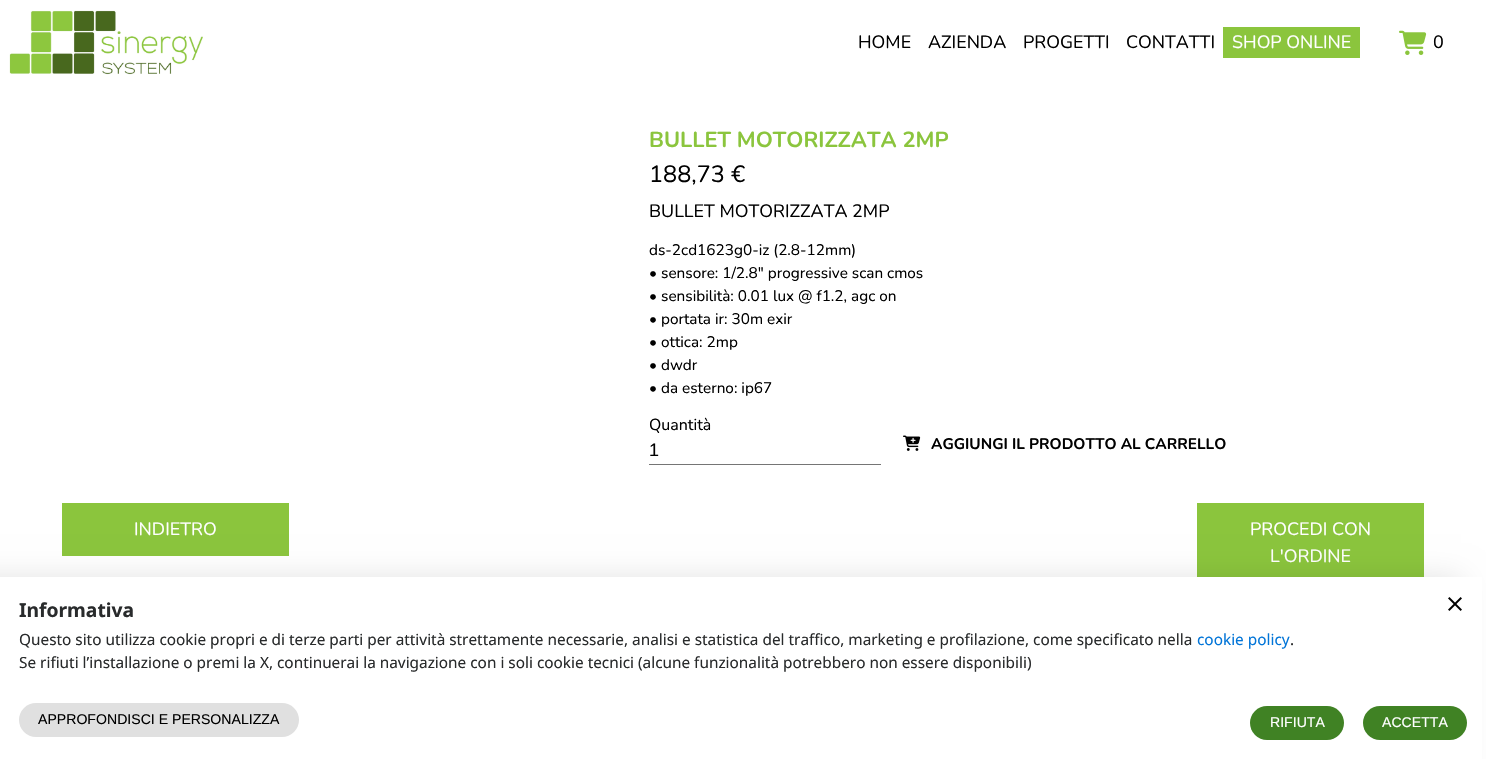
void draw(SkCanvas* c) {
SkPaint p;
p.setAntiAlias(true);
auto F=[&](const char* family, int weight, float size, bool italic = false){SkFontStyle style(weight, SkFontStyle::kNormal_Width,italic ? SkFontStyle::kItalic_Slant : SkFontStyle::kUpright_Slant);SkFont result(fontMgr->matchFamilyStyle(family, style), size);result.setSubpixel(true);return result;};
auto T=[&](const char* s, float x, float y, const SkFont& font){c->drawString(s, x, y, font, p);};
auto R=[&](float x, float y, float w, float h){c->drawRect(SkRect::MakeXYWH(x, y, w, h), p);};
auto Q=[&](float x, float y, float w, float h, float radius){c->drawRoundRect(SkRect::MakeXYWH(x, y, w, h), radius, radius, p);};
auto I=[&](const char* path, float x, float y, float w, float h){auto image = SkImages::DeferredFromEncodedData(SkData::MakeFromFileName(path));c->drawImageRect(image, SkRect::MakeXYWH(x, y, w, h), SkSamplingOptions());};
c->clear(0xffffffff);
I("1.png",9,10,194,65);
auto f1 = F("Nunito",400,17.9);
p.setColor(0xff000000);
T("HOME",858,48,f1);
T("AZIENDA",928,48,f1);
T("PROGETTI",1023,48,f1);
T("CONTATTI",1126,48,f1);
p.setColor(0xff8bc53d);
R(1223,27,137,31);
p.setColor(0xffffffff);
T("SHOP ONLINE",1232,48,f1);
I("2.png",1399,30,28,25);
p.setColor(0xff000000);
T("0",1433,48,f1);
auto f2 = F("Nunito",700,21.75);
p.setColor(0xff8bc53d);
T("BULLET MOTORIZZATA 2MP",649,147,f2);
auto f3 = F("Nunito",400,23.5);
p.setColor(0xff000000);
T("188,73 €",649,182,f3);
T("BULLET MOTORIZZATA 2MP",649,217,f1);
auto f4 = F("Nunito",400,15.35);
T("ds-2cd1623g0-iz (2.8-12mm)",649,255,f4);
T("• sensore: 1/2.8\" progressive scan cmos",649,278,f4);
T("• sensibilità: 0.01 lux @ f1.2, agc on",649,301,f4);
T("• portata ir: 30m exir",649,324,f4);
T("• ottica: 2mp",649,347,f4);
T("• dwdr",649,370,f4);
T("• da esterno: ip67",649,393,f4);
auto f5 = F("Nunito",400,16);
T("Quantità",649,430,f5);
p.setColor(0xff757575);
R(649,464,232,1);
auto f6 = F("Liberation Sans",400,18);
p.setColor(0xff000000);
T("1",649,456,f6);
I("3.png",903,435,18,16);
auto f7 = F("Nunito",700,15.35);
T("AGGIUNGI IL PRODOTTO AL CARRELLO",931,449,f7);
p.setColor(0xff8bc53d);
R(62,503,227,53);
p.setColor(0xffffffff);
T("INDIETRO",134,535,f1);
p.setColor(0xff8bc53d);
R(1197,503,227,74);
p.setColor(0xffffffff);
T("PROCEDI CON",1250,535,f1);
T("L'ORDINE",1270,562,f1);
p.setColor(0x1f000000);
p.setMaskFilter(SkMaskFilter::MakeBlur(kNormal_SkBlurStyle, 15));
c->drawRect(SkRect::MakeXYWH(-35,579,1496,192),p);
p.setMaskFilter(nullptr);
p.setColor(0xffffffff);
R(0,577,1482,182);
auto f8 = F("Noto Sans",700,19.25);
p.setColor(0xff292b2c);
T("Informativa",19,617,f8);
I("4.png",1448,597,14,14);
auto f9 = F("Noto Sans",400,15.35);
T("Questo sito utilizza cookie propri e di terze parti per attività strettamente necessarie, analisi e statistica del traffico, marketing e profilazione, come specificato nella",19,645,f9);
p.setColor(0xff0275d8);
T("cookie policy",1197,645,f9);
p.setColor(0xff292b2c);
T(".",1290,645,f9);
T("Se rifiuti l’installazione o premi la X, continuerai la navigazione con i soli cookie tecnici (alcune funzionalità potrebbero non essere disponibili)",19,668,f9);
p.setColor(0xffe0e0e0);
Q(19,703,280,34,17);
auto f10 = F("Liberation Sans",400,14.1);
p.setColor(0xff000000);
T("APPROFONDISCI E PERSONALIZZA",38,724,f10);
p.setColor(0xff408224);
Q(1250,706,94,34,17);
p.setColor(0xffffffff);
T("RIFIUTA",1270,727,f10);
p.setColor(0xff408224);
Q(1363,706,104,34,17);
p.setColor(0xffffffff);
T("ACCETTA",1382,727,f10);
}
